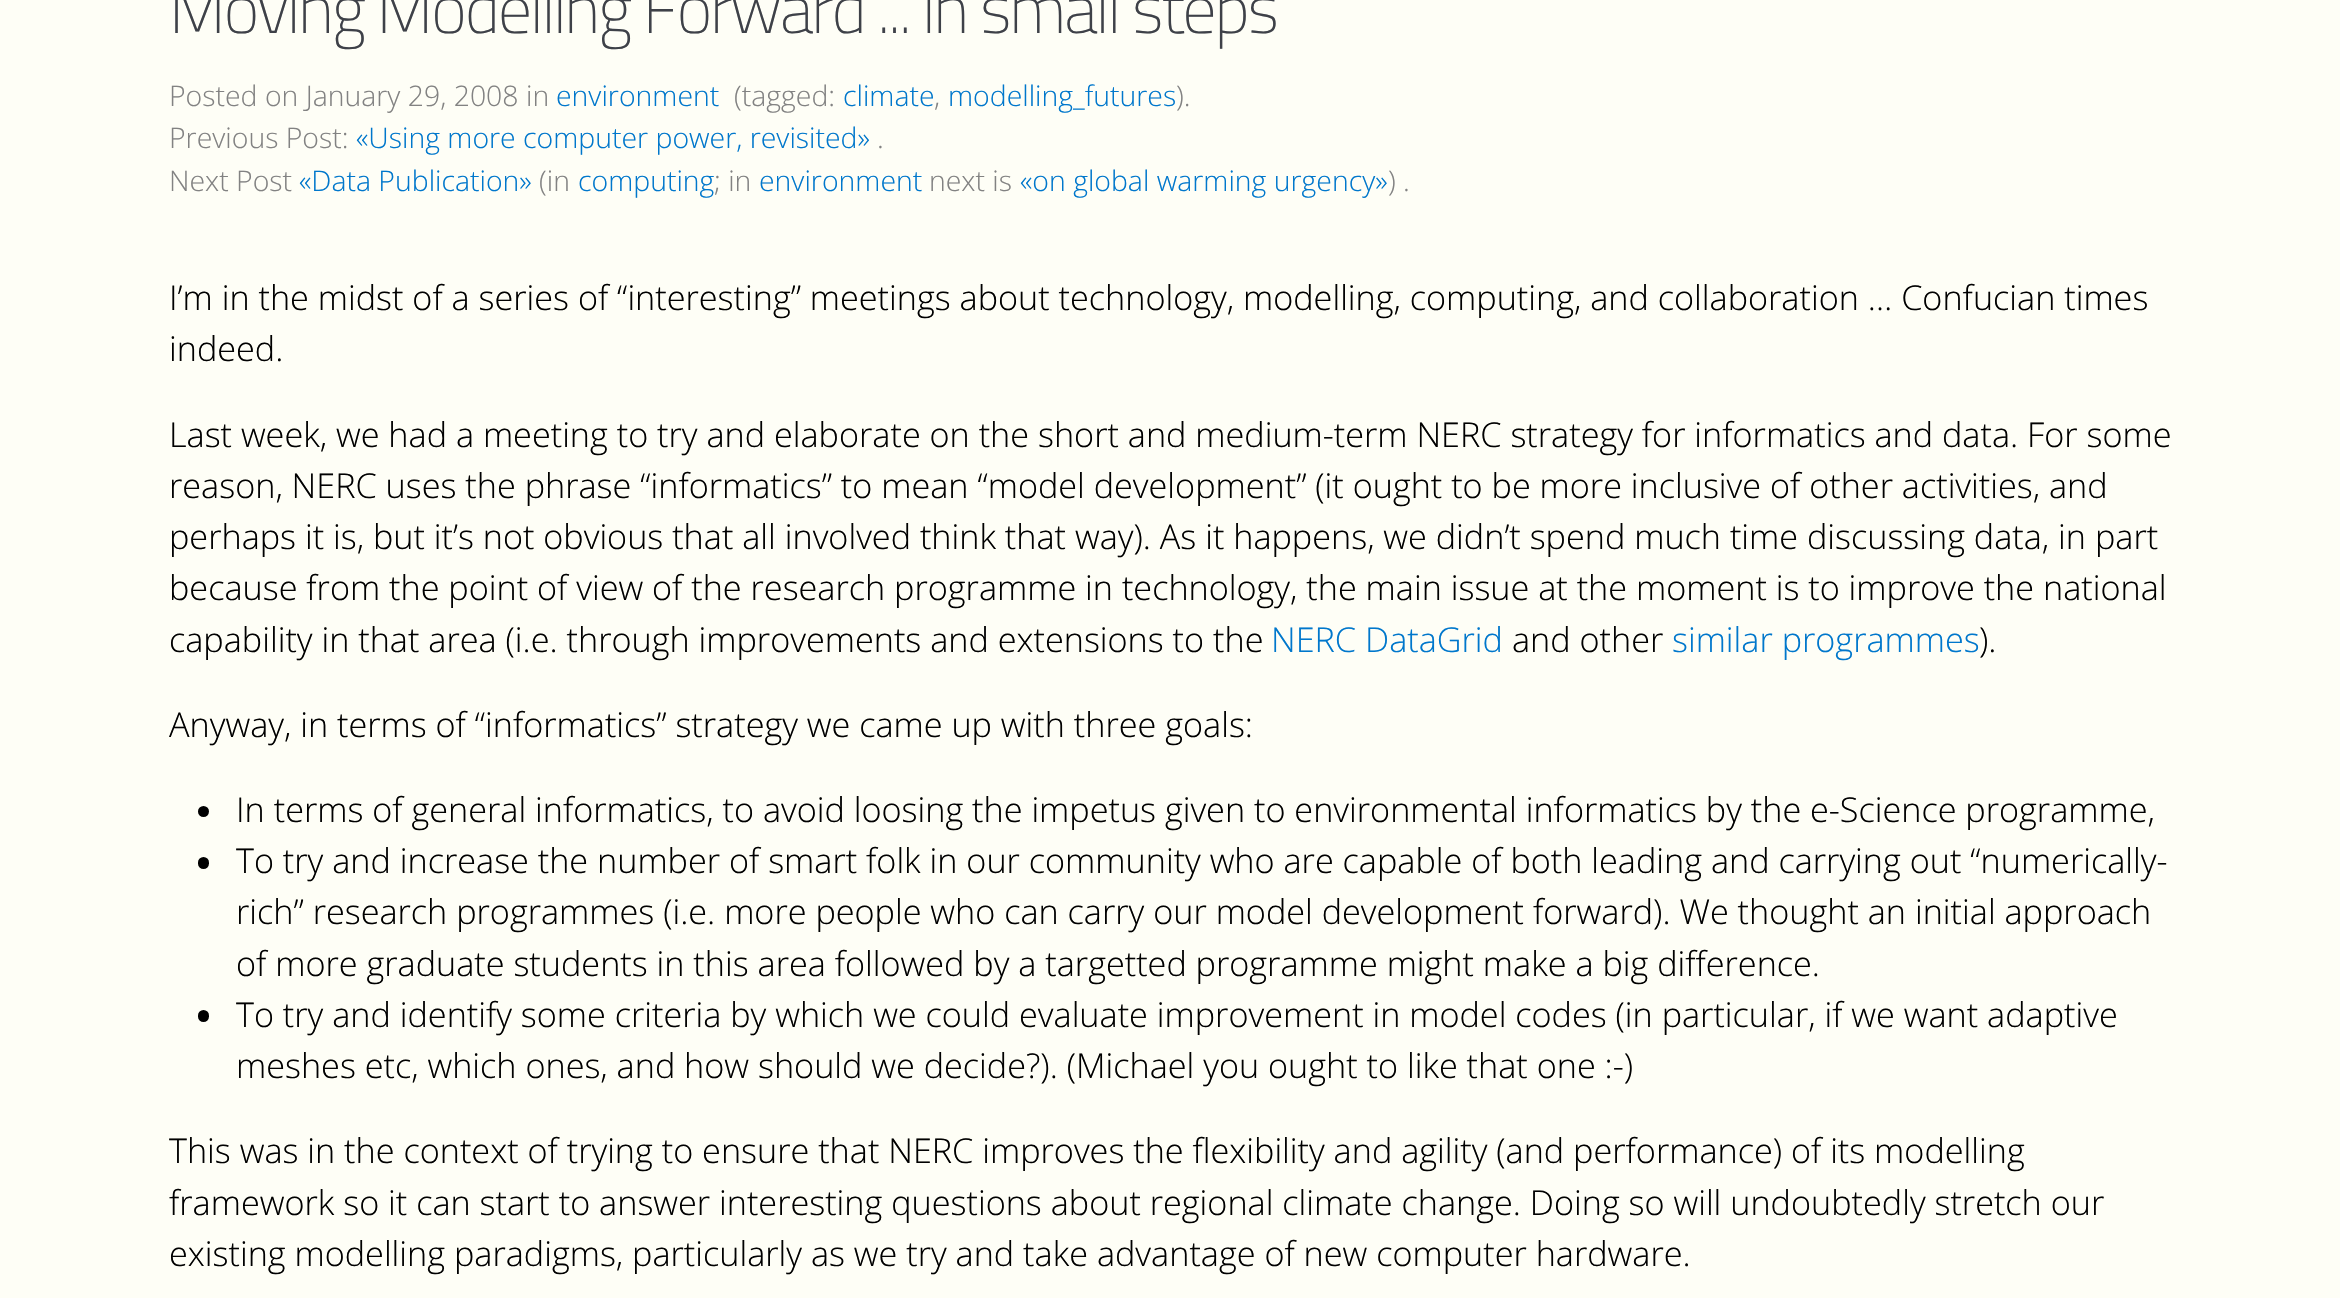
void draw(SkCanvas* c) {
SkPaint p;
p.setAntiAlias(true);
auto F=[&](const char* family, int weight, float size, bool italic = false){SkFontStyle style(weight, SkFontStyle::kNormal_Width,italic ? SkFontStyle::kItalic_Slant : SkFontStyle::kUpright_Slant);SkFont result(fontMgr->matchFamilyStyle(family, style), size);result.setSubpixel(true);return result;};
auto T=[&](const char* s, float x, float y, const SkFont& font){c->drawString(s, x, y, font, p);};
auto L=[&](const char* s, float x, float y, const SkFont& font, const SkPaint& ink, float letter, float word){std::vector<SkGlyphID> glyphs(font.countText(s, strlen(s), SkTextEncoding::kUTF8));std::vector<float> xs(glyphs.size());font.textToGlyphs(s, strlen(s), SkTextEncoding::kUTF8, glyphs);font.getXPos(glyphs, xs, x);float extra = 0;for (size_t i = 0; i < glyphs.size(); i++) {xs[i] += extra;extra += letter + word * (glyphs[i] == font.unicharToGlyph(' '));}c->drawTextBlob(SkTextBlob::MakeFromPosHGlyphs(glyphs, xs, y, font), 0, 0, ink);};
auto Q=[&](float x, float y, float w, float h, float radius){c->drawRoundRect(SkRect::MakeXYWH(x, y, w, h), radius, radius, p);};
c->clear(0xfffefef6);
auto f1 = F("Titillium Web",300,68.4);
p.setColor(0xff3e4148);
L("Moving Modelling Forward ... in small steps",169,33,f1,p,-2.25,0);
auto f2 = F("Open Sans",300,28.4);
p.setColor(0xff828282);
T("Posted on January 29, 2008",169,106,f2);
T("in",526,106,f2);
p.setColor(0xff0077cc);
T("environment",556,106,f2);
p.setColor(0xff828282);
T("(tagged:",734,106,f2);
p.setColor(0xff0077cc);
T("climate",843,106,f2);
p.setColor(0xff828282);
T(",",934,106,f2);
p.setColor(0xff0077cc);
T("modelling_futures",948,106,f2);
p.setColor(0xff828282);
T(").",1176,106,f2);
T("Previous Post:",169,148,f2);
p.setColor(0xff0077cc);
T("«Using more computer power, revisited»",356,148,f2);
p.setColor(0xff828282);
T(".",877,148,f2);
T("Next Post",169,191,f2);
p.setColor(0xff0077cc);
T("«Data Publication»",299,191,f2);
p.setColor(0xff828282);
T("(in",539,191,f2);
p.setColor(0xff0077cc);
T("computing",578,191,f2);
p.setColor(0xff828282);
T("; in",714,191,f2);
p.setColor(0xff0077cc);
T("environment",759,191,f2);
p.setColor(0xff828282);
T("next is",929,191,f2);
p.setColor(0xff0077cc);
T("«on global warming urgency»",1020,191,f2);
p.setColor(0xff828282);
T(") .",1388,191,f2);
auto f3 = F("Open Sans",300,34.2);
p.setColor(0xff000000);
T("I’m in the midst of a series of “interesting” meetings about technology, modelling, computing, and collaboration … Confucian times",169,310,f3);
T("indeed.",169,361,f3);
T("Last week, we had a meeting to try and elaborate on the short and medium-term NERC strategy for informatics and data. For some",169,447,f3);
T("reason, NERC uses the phrase “informatics” to mean “model development” (it ought to be more inclusive of other activities, and",169,498,f3);
T("perhaps it is, but it’s not obvious that all involved think that way). As it happens, we didn’t spend much time discussing data, in part",169,549,f3);
T("because from the point of view of the research programme in technology, the main issue at the moment is to improve the national",169,600,f3);
T("capability in that area (i.e. through improvements and extensions to the",169,652,f3);
p.setColor(0xff0077cc);
T("NERC DataGrid",1271,652,f3);
p.setColor(0xff000000);
T("and other",1512,652,f3);
p.setColor(0xff0077cc);
T("similar programmes",1672,652,f3);
p.setColor(0xff000000);
T(").",1979,652,f3);
T("Anyway, in terms of “informatics” strategy we came up with three goals:",169,737,f3);
c->drawCircle(203.5,811.5,5.5,p);
T("In terms of general informatics, to avoid loosing the impetus given to environmental informatics by the e-Science programme,",236,822,f3);
Q(198,857,11,12,5.5);
T("To try and increase the number of smart folk in our community who are capable of both leading and carrying out “numerically-",236,873,f3);
T("rich” research programmes (i.e. more people who can carry our model development forward). We thought an initial approach",236,924,f3);
T("of more graduate students in this area followed by a targetted programme might make a big difference.",236,976,f3);
Q(198,1010,11,12,5.5);
T("To try and identify some criteria by which we could evaluate improvement in model codes (in particular, if we want adaptive",236,1027,f3);
T("meshes etc, which ones, and how should we decide?). (Michael you ought to like that one :-)",236,1078,f3);
T("This was in the context of trying to ensure that NERC improves the flexibility and agility (and performance) of its modelling",169,1163,f3);
T("framework so it can start to answer interesting questions about regional climate change. Doing so will undoubtedly stretch our",169,1215,f3);
T("existing modelling paradigms, particularly as we try and take advantage of new computer hardware.",169,1266,f3);
}
